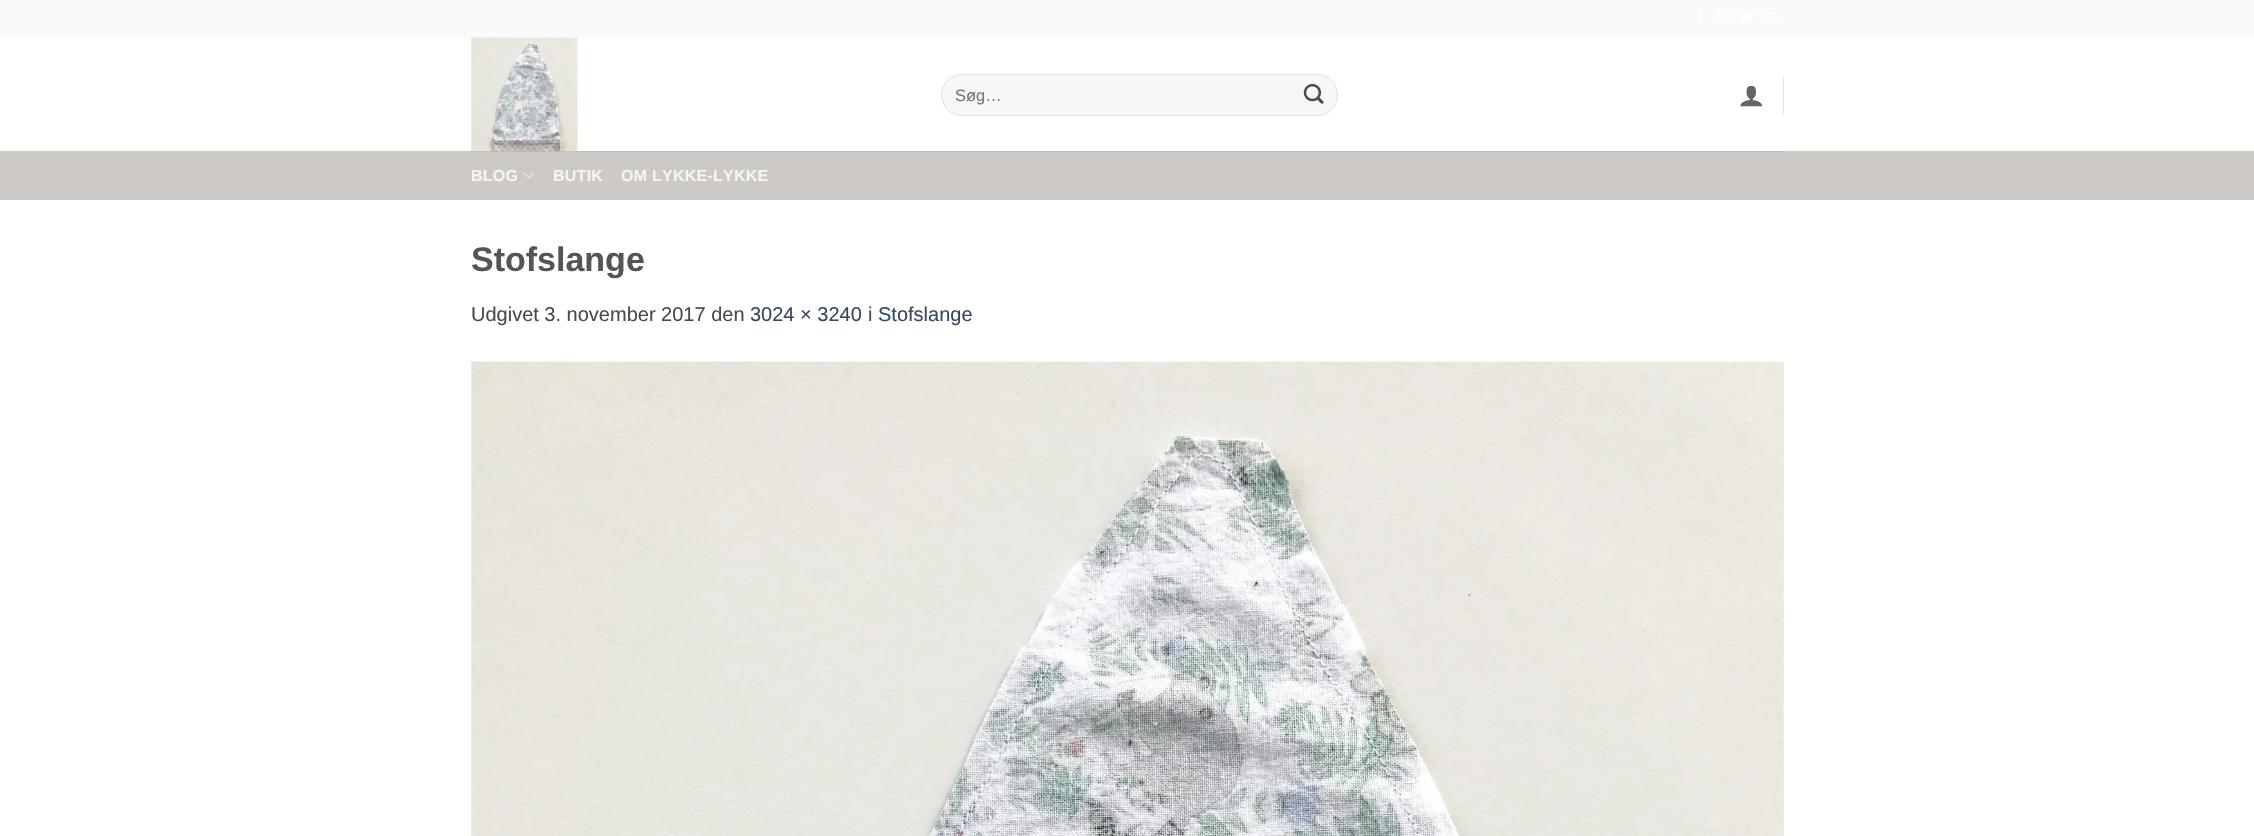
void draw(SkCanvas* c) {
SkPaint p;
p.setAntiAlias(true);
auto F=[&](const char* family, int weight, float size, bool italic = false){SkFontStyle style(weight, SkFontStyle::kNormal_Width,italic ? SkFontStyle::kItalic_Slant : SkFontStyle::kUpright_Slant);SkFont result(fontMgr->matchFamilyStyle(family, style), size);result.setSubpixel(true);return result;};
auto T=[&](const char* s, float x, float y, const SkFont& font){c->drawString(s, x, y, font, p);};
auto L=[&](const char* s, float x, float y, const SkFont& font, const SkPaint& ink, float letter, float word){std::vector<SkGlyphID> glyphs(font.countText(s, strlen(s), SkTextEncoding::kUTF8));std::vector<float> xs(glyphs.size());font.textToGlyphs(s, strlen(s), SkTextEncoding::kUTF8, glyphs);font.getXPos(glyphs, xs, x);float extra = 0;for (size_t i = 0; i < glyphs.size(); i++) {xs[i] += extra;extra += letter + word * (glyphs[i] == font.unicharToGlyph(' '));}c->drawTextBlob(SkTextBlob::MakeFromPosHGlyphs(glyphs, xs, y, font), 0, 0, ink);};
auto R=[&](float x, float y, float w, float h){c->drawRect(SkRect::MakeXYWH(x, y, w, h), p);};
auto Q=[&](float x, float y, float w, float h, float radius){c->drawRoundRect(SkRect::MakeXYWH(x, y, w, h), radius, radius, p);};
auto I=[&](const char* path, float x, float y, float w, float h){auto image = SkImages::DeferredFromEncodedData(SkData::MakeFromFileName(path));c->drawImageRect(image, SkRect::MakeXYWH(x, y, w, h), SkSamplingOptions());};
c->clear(0xffffffff);
p.setColor(0xffcdcac6);
R(0,151,2254,49);
I("5.png",471,37,107,115);
p.setColor(0x6bf4f4f4);
R(0,0,2254,38);
I("1.png",1697,10,6,14);
I("2.png",1717,10,14,14);
I("3.png",1741,12,13,11);
I("4.png",1764,12,14,11);
p.setColor(0xfff7f7f7);
Q(941,74,397,42,21);
p.setStroke(true);
p.setStrokeWidth(1);
p.setColor(0x17000000);
c->drawRoundRect(SkRect::MakeXYWH(941.5,74.5,396,41),20.5,20.5,p);
auto f1 = F("Liberation Sans",400,16.5);
p.setStroke(false);
p.setColor(0xff757575);
T("Søg…",955,101,f1);
I("6.png",1303,83,21,21);
I("7.png",1740,85,23,22);
p.setColor(0xffe6e6e6);
R(1783,76,1,38);
p.setColor(0x1a4a4a4a);
R(471,151,1313,1);
auto f2 = F("Liberation Sans",700,16);
p.setColor(0xfff5f4f4);
L("BLOG",471,181,f2,p,.25,0);
I("8.png",523,172,12,7);
L("BUTIK",553,181,f2,p,.25,0);
L("OM LYKKE-LYKKE",621,181,f2,p,.25,0);
auto f3 = F("Liberation Sans",700,34);
p.setColor(0xff555555);
T("Stofslange",471,271,f3);
auto f4 = F("Liberation Sans",400,20);
p.setColor(0xff4a4a4a);
T("Udgivet 3. november 2017 den",471,321,f4);
p.setColor(0xff334862);
T("3024 × 3240",750,321,f4);
p.setColor(0xff4a4a4a);
T("i",868,321,f4);
p.setColor(0xff334862);
T("Stofslange",878,321,f4);
I("9.png",471,361,1313,475);
}
